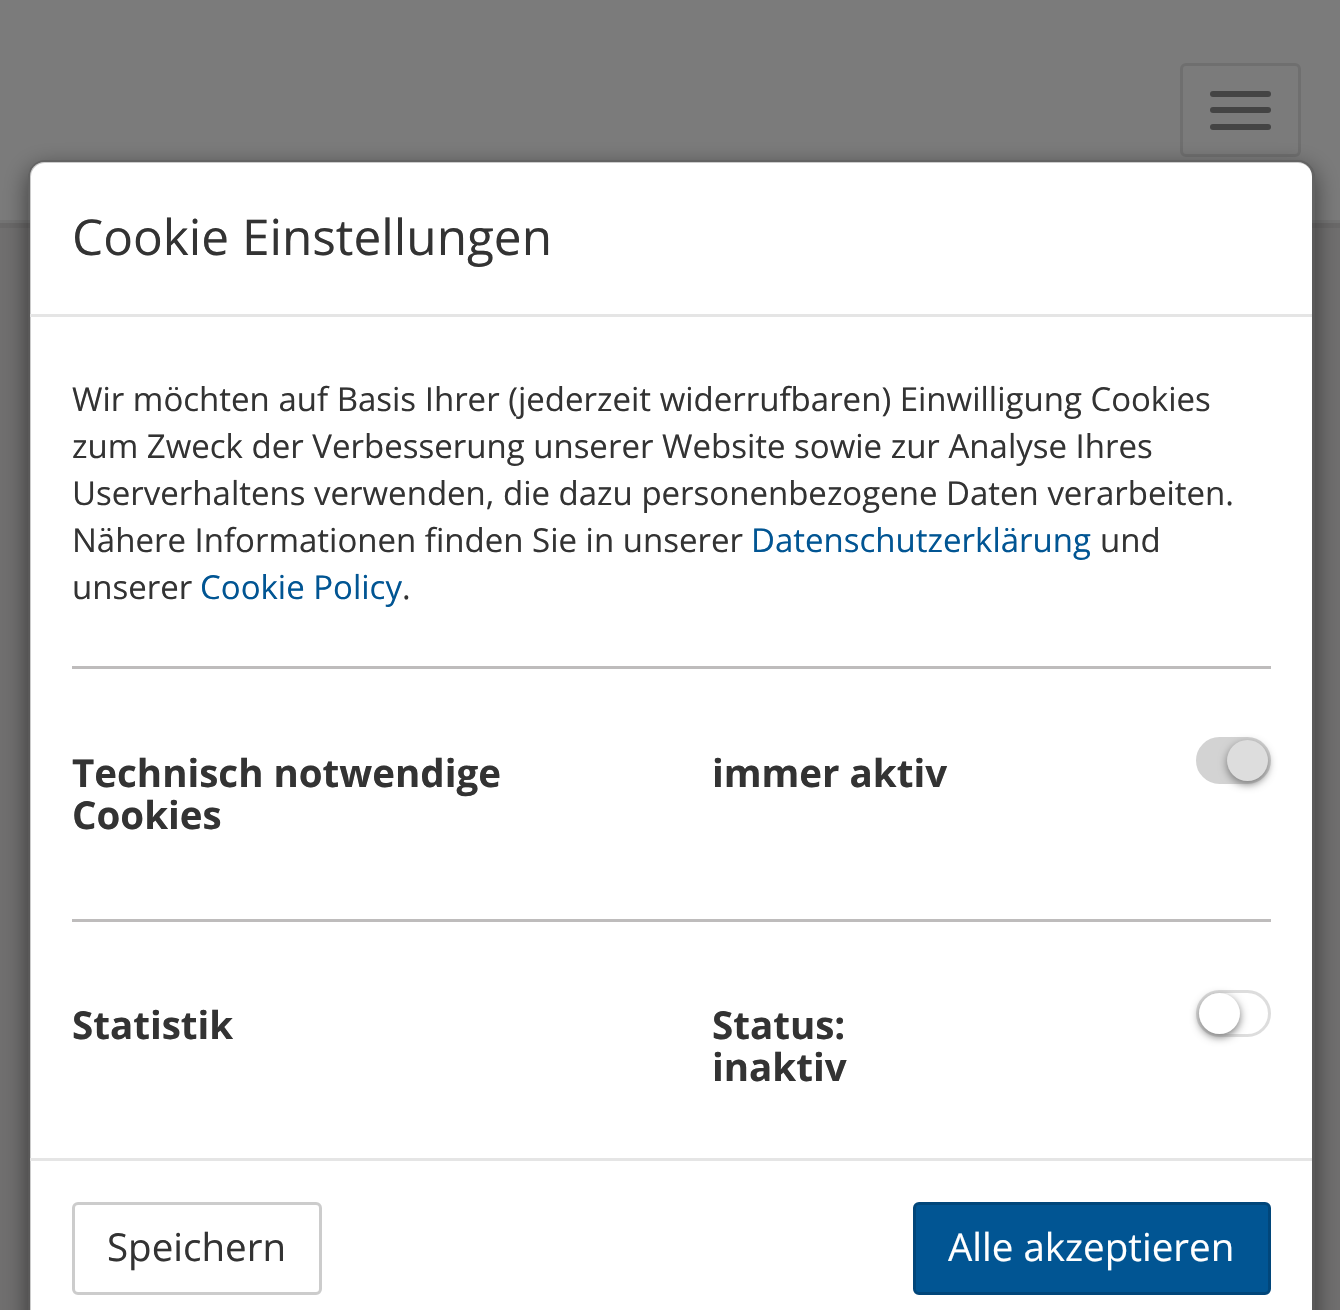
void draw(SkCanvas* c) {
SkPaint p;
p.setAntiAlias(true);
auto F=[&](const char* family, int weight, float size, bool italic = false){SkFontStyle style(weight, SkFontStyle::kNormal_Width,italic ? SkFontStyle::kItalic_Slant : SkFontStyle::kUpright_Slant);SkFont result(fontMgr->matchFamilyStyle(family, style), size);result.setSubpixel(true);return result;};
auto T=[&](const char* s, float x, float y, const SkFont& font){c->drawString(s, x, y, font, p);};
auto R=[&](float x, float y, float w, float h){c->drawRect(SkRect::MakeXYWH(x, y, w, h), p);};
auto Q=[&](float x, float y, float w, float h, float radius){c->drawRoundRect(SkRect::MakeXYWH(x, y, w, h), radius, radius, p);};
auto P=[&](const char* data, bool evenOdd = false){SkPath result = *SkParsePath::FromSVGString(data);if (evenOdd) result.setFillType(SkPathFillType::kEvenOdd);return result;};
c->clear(0xff706f6f);
p.setColor(0xff7b7b7b);
R(0,0,1340,220);
p.setColor(0xff747474);
R(0,220,1340,3);
p.setStroke(true);
p.setStrokeWidth(3);
p.setColor(0xff6f6f6f);
c->drawRoundRect(SkRect::MakeXYWH(1181.5,64.5,118,91),4.5,4.5,p);
p.setStroke(false);
p.setColor(0xff444444);
Q(1210,91,61,6,3);
Q(1210,107,61,6,3);
Q(1210,124,61,6,3);
p.setColor(0xff6a6969);
R(0,223,1340,5);
c->save();
c->clipPath(P("M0 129h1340v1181h-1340zm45 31h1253c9.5 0 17 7.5 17 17v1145c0 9.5-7.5 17-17 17h-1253c-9.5 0-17-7.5-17-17v-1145c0-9.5 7.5-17 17-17z",true),true);
p.setColor(0x80000000);
p.setMaskFilter(SkMaskFilter::MakeBlur(kNormal_SkBlurStyle, 12.5));
c->drawRoundRect(SkRect::MakeXYWH(28,168,1287,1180),17,17,p);
p.setMaskFilter(nullptr);
c->restore();
p.setColor(0xffffffff);
c->drawPath(P("M44 162h1254c7.5 0 14 6.5 14 14v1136h-1282v-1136c0-7.5 6.5-14 14-14z"),p);
p.setStroke(true);
p.setColor(0x33000000);
c->drawRoundRect(SkRect::MakeXYWH(29.5,161.5,1284,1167),15.5,15.5,p);
p.setStroke(false);
p.setColor(0xffe5e5e5);
R(30,314,1282,3);
auto f1 = F("Open Sans",400,49.5);
p.setColor(0xff333333);
T("Cookie Einstellungen",72,255,f1);
auto f2 = F("Open Sans",400,33);
T("Wir möchten auf Basis Ihrer (jederzeit widerrufbaren) Einwilligung Cookies",72,411,f2);
T("zum Zweck der Verbesserung unserer Website sowie zur Analyse Ihres",72,458,f2);
T("Userverhaltens verwenden, die dazu personenbezogene Daten verarbeiten.",72,505,f2);
T("Nähere Informationen finden Sie in unserer",72,552,f2);
p.setColor(0xff015593);
T("Datenschutzerklärung",751,552,f2);
p.setColor(0xff333333);
T("und",1100,552,f2);
T("unserer",72,599,f2);
p.setColor(0xff015593);
T("Cookie Policy",200,599,f2);
p.setColor(0xff333333);
T(".",402,599,f2);
p.setColor(0xffbebcbc);
R(72,666,1199,3);
auto f3 = F("Open Sans",700,38.5);
p.setColor(0xff333333);
T("Technisch notwendige",72,787,f3);
T("Cookies",72,829,f3);
T("immer aktiv",712,787,f3);
p.setColor(0xffd3d3d3);
c->drawRoundRect(SkRect::MakeXYWH(1197.5,738.5,72,44),22,22,p);
p.setStroke(true);
c->drawRoundRect(SkRect::MakeXYWH(1197.5,738.5,72,44),22,22,p);
p.setStroke(false);
p.setColor(0xff777777);
p.setMaskFilter(SkMaskFilter::MakeBlur(kNormal_SkBlurStyle, 4));
c->drawRoundRect(SkRect::MakeXYWH(1227,743,41,41),20.5,20.5,p);
p.setMaskFilter(nullptr);
p.setColor(0xffdddddd);
c->drawCircle(1247.5,760.5,20.5,p);
p.setColor(0xffbebcbc);
R(72,919,1199,3);
p.setColor(0xff333333);
T("Statistik",72,1039,f3);
T("Status:",712,1039,f3);
T("inaktiv",712,1081,f3);
p.setStroke(true);
p.setColor(0xffdddddd);
c->drawRoundRect(SkRect::MakeXYWH(1197.5,991.5,72,44),22,22,p);
p.setStroke(false);
p.setColor(0xff777777);
p.setMaskFilter(SkMaskFilter::MakeBlur(kNormal_SkBlurStyle, 4));
c->drawRoundRect(SkRect::MakeXYWH(1199,996,41,41),20.5,20.5,p);
p.setMaskFilter(nullptr);
p.setColor(0xffffffff);
c->drawCircle(1219.5,1013.5,20.5,p);
p.setColor(0xffe5e5e5);
R(30,1158,1282,3);
p.setStroke(true);
p.setColor(0xffcccccc);
c->drawRoundRect(SkRect::MakeXYWH(73.5,1203.5,247,90),4.5,4.5,p);
auto f4 = F("Open Sans",400,38.5);
p.setStroke(false);
p.setColor(0xff333333);
T("Speichern",107,1261,f4);
p.setColor(0xff015593);
c->drawRoundRect(SkRect::MakeXYWH(914.5,1203.5,355,90),4.5,4.5,p);
p.setStroke(true);
p.setColor(0xff01467a);
c->drawRoundRect(SkRect::MakeXYWH(914.5,1203.5,355,90),4.5,4.5,p);
p.setStroke(false);
p.setColor(0xffffffff);
T("Alle akzeptieren",948,1261,f4);
}
